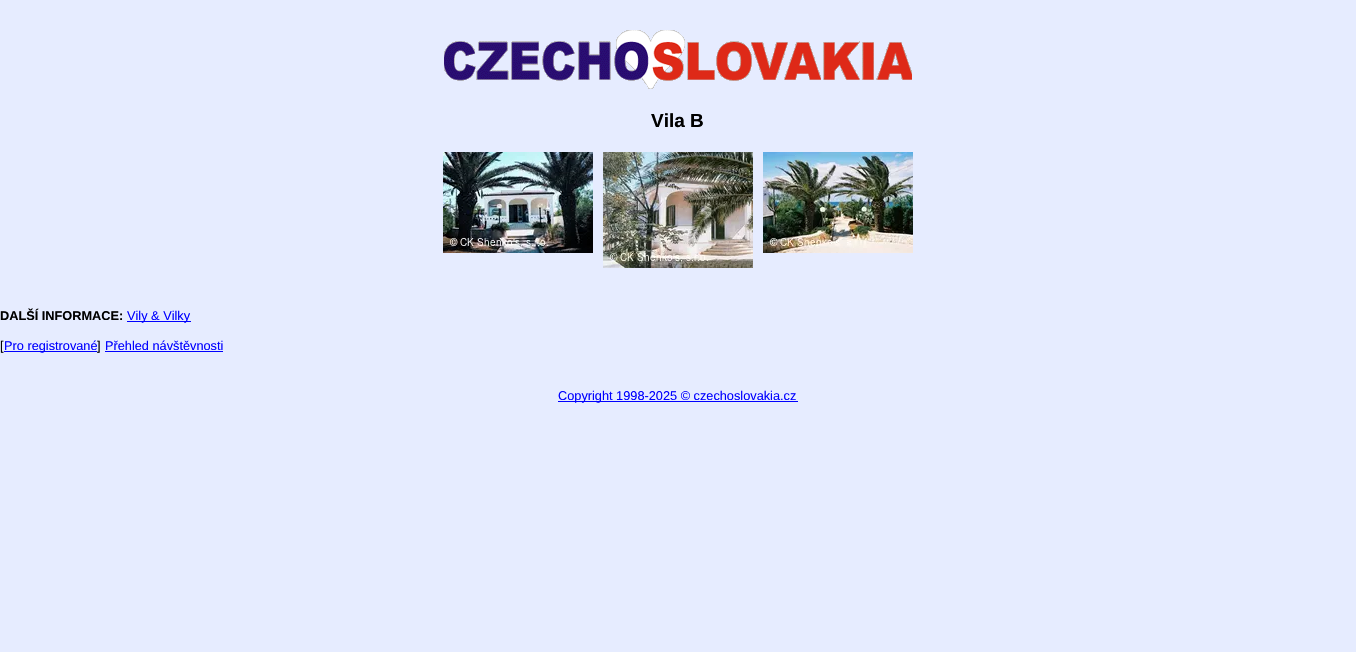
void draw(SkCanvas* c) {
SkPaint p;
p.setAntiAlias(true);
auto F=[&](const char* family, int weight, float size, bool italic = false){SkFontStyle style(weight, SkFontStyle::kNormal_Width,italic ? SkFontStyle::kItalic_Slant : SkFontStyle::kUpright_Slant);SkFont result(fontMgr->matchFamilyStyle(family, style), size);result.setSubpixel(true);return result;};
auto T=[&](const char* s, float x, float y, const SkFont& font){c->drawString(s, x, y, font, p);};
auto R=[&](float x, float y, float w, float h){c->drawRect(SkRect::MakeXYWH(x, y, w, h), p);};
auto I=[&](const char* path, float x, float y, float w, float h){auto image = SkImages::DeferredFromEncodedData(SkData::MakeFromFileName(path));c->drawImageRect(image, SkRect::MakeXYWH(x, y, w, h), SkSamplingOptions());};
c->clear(0xffe6ecff);
I("1.png",444,30,468,59);
auto f1 = F("Liberation Sans",700,19);
p.setColor(0xff000000);
T("Vila B",651,127,f1);
I("2.png",443,152,150,101);
I("3.png",603,152,150,116);
I("4.png",763,152,150,101);
auto f2 = F("Liberation Sans",700,12.75);
T("DALŠÍ INFORMACE:",0,320,f2);
p.setColor(0xff0000ff);
R(127,321,64,1);
auto f3 = F("Liberation Sans",400,12.75);
T("Vily & Vilky",127,320,f3);
p.setColor(0xff000000);
T("[",0,350,f3);
p.setColor(0xff0000ff);
R(4,351,93,1);
T("Pro registrované",4,350,f3);
p.setColor(0xff000000);
T("]",97,350,f3);
p.setColor(0xff0000ff);
T("Přehled návštěvnosti",105,350,f3);
R(105,351,118,1);
R(558,401,240,1);
T("Copyright 1998-2025 © czechoslovakia.cz",558,400,f3);
}
